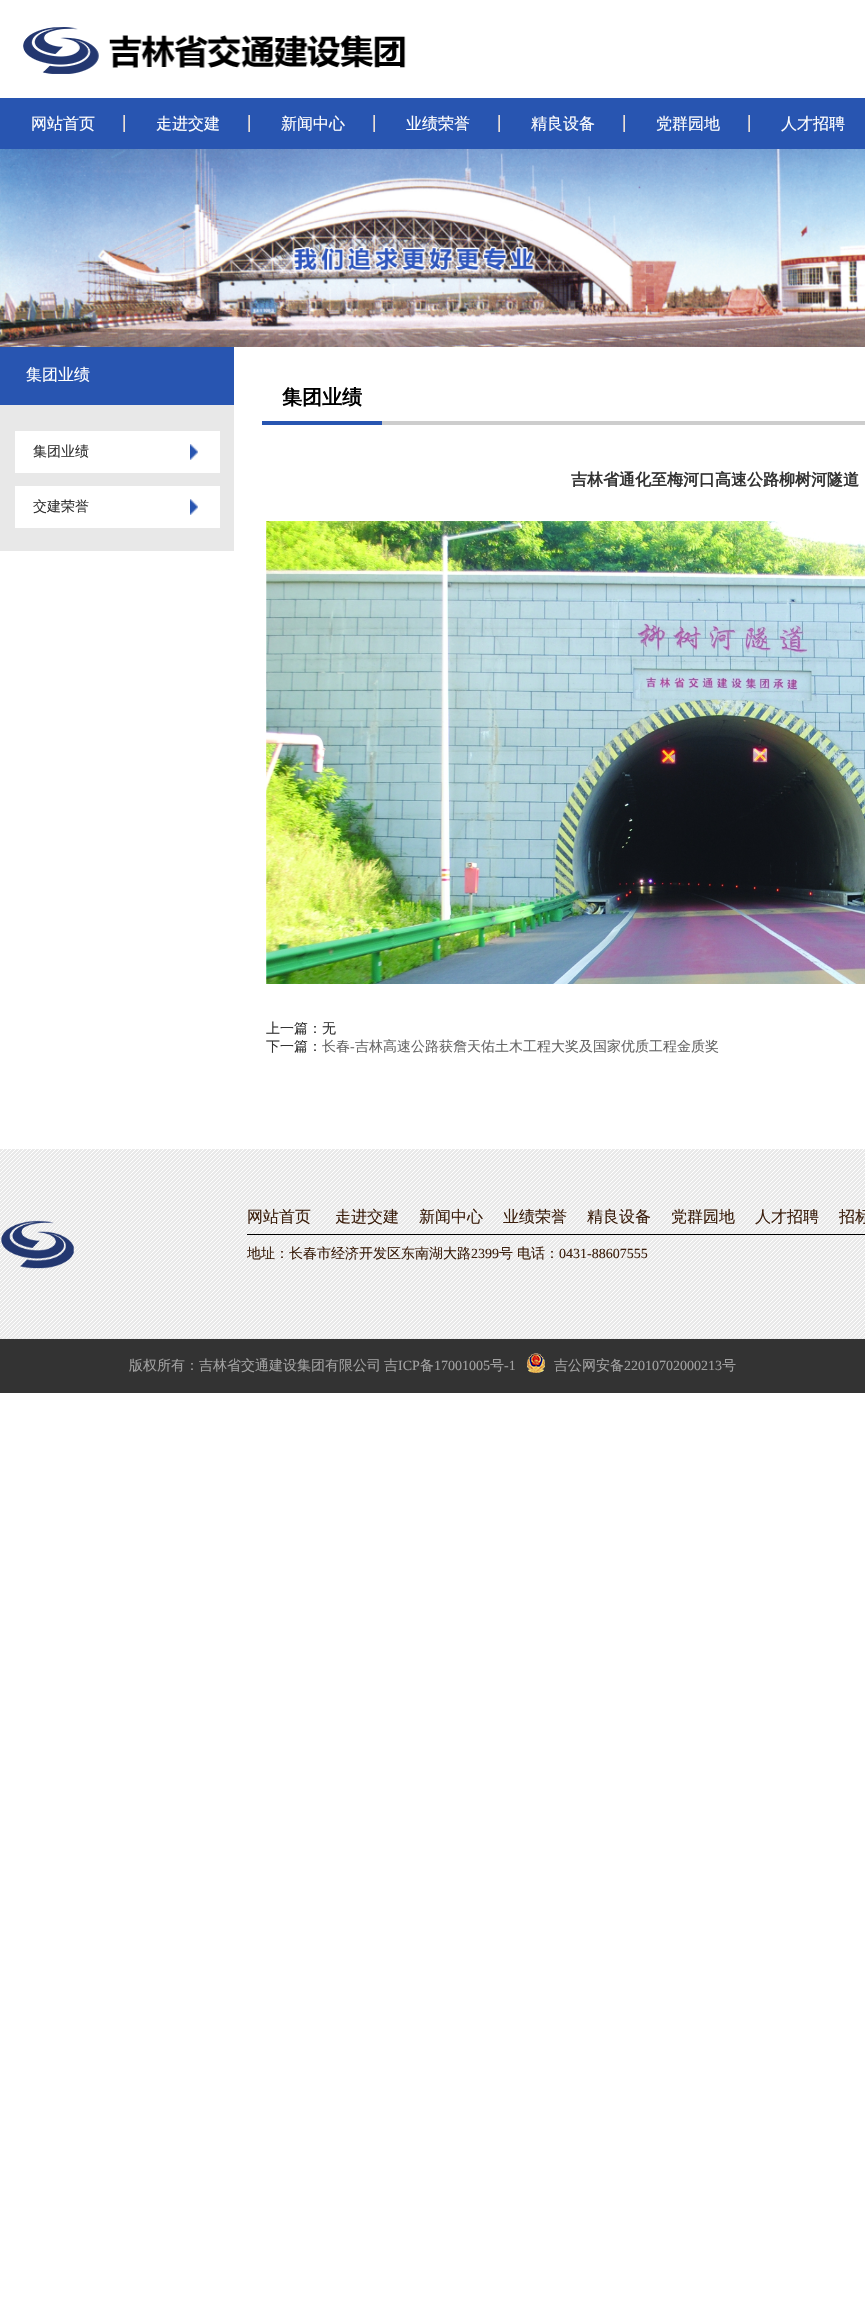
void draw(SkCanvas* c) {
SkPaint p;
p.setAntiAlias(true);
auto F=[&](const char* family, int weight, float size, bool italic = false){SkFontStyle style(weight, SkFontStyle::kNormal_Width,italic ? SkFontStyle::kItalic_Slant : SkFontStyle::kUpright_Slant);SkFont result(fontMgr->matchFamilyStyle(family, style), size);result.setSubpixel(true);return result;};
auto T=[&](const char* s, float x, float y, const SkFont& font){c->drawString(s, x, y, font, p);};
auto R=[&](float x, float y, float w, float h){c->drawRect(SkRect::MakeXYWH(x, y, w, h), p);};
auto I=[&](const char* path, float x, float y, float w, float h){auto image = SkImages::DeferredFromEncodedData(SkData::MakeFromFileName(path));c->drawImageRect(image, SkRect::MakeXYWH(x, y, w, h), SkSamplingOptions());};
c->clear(0xffffffff);
I("1.png",23,27,383,47);
p.setColor(0xff2855b1);
R(0,98,865,51);
I("2.png",123,115,2,17);
auto f1 = F("WenQuanYi Zen Hei",500,16);
p.setColor(0xffffffff);
T("网站首页",31,129,f1);
I("2.png",248,115,2,17);
T("走进交建",156,129,f1);
I("2.png",373,115,2,17);
T("新闻中心",281,129,f1);
I("2.png",498,115,2,17);
T("业绩荣誉",406,129,f1);
I("2.png",623,115,2,17);
T("精良设备",531,129,f1);
I("2.png",748,115,2,17);
T("党群园地",656,129,f1);
T("人才招聘",781,129,f1);
I("3.png",0,149,865,198);
p.setColor(0xff2855b1);
R(0,347,234,58);
p.setColor(0xffffffff);
T("集团业绩",26,380,f1);
p.setColor(0xffe8e8e8);
R(0,405,234,146);
p.setColor(0xffffffff);
R(15,431,205,42);
I("4.png",190,444,8,16);
auto f2 = F("WenQuanYi Zen Hei",500,14);
p.setColor(0xff333333);
T("集团业绩",33,456,f2);
p.setColor(0xffffffff);
R(15,486,205,42);
I("4.png",190,499,8,16);
p.setColor(0xff333333);
T("交建荣誉",33,511,f2);
p.setColor(0xffcdcdcd);
R(382,421,483,4);
p.setColor(0xff2855b1);
R(262,421,120,4);
auto f3 = F("WenQuanYi Zen Hei",700,20);
p.setColor(0xff000000);
T("集团业绩",282,404,f3);
auto f4 = F("WenQuanYi Zen Hei",700,16);
p.setColor(0xff333333);
T("吉林省通化至梅河口高速公路柳树河隧道",571,485,f4);
I("5.png",266,521,599,463);
T("上一篇：无",266,1033,f2);
T("下一篇：",266,1051,f2);
p.setColor(0xff666666);
T("长春",322,1051,f2);
auto f5 = F("Liberation Serif",400,14);
T("-",350,1051,f5);
T("吉林高速公路获詹天佑土木工程大奖及国家优质工程金质奖",355,1051,f2);
I("6.png",0,1149,865,190);
I("7.png",1,1220,73,49);
p.setColor(0xff000000);
R(247,1234,618,1);
p.setColor(0xff3b1f0d);
T("网站首页",247,1222,f1);
T("走进交建",335,1222,f1);
T("新闻中心",419,1222,f1);
T("业绩荣誉",503,1222,f1);
T("精良设备",587,1222,f1);
T("党群园地",671,1222,f1);
T("人才招聘",755,1222,f1);
T("招标",839,1222,f1);
T("地址：长春市经济开发区东南湖大路",247,1258,f2);
T("2399",471,1258,f5);
T("号",499,1258,f2);
T("电话：",517,1258,f2);
T("0431-88607555",559,1258,f5);
p.setColor(0xff333333);
R(0,1339,865,54);
p.setColor(0xffa1a1a1);
T("版权所有：吉林省交通建设集团有限公司",129,1370,f2);
T("吉",384,1370,f2);
T("ICP",398,1370,f5);
T("备",420,1370,f2);
T("17001005",434,1370,f5);
T("号",490,1370,f2);
T("-1",504,1370,f5);
I("8.png",527,1353,18,20);
T("吉公网安备",554,1370,f2);
T("22010702000213",624,1370,f5);
T("号",722,1370,f2);
}
